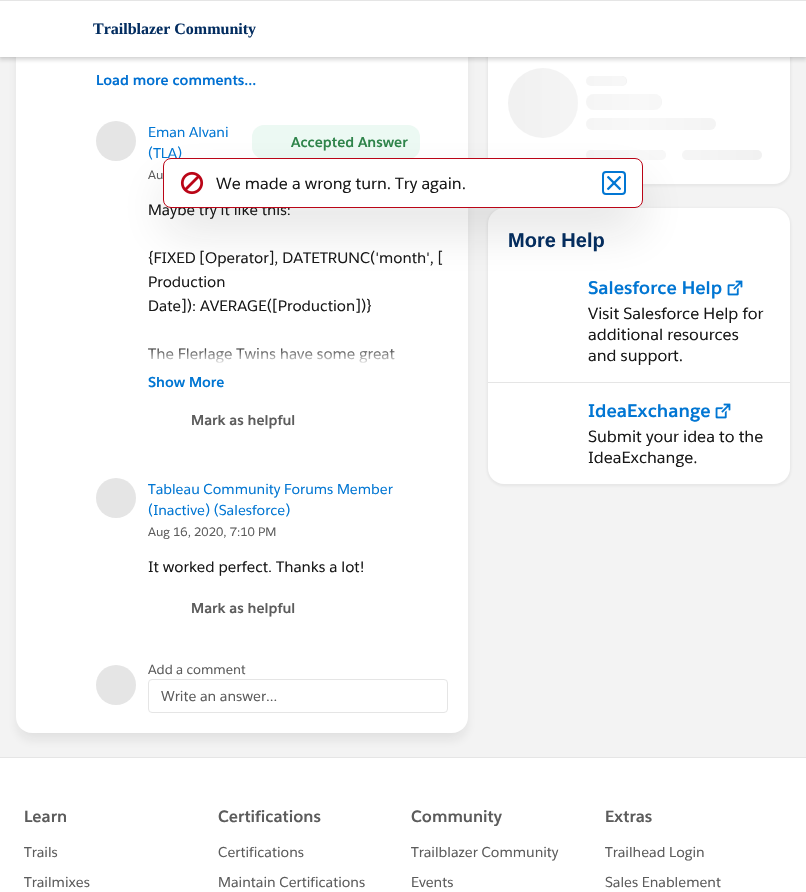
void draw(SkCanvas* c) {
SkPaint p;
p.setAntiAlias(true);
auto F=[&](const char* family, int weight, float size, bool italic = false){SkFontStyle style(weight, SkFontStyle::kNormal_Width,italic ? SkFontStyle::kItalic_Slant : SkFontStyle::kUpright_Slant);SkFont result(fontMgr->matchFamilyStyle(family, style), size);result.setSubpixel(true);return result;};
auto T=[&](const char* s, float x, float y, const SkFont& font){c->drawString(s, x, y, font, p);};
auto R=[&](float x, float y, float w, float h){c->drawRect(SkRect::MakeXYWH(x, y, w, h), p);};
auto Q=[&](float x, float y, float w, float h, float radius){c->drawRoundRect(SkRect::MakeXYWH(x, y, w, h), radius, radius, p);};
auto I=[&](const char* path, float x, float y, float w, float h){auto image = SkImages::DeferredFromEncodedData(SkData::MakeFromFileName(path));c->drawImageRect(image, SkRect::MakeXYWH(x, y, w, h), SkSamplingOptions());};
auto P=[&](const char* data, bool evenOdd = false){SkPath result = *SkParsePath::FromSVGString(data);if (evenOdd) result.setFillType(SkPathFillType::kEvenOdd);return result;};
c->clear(0xffffffff);
p.setColor(0xfff3f3f3);
R(0,57,806,700);
p.setColor(0xffe5e5e5);
R(0,757,806,1);
p.setColor(0x17181818);
p.setMaskFilter(SkMaskFilter::MakeBlur(kNormal_SkBlurStyle, 6));
c->drawRoundRect(SkRect::MakeXYWH(18,-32,448,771),14,14,p);
p.setMaskFilter(nullptr);
p.setColor(0xffffffff);
Q(16,-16,452,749,16);
p.setColor(0x0f181818);
p.setMaskFilter(SkMaskFilter::MakeBlur(kNormal_SkBlurStyle, 1.5));
c->drawRoundRect(SkRect::MakeXYWH(487,-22,304,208),17,17,p);
p.setMaskFilter(nullptr);
p.setColor(0xffffffff);
Q(488,-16,302,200,16);
p.setColor(0x29181818);
p.setMaskFilter(SkMaskFilter::MakeBlur(kNormal_SkBlurStyle, 2));
c->drawRect(SkRect::MakeXYWH(-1,1,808,59),p);
p.setMaskFilter(nullptr);
p.setColor(0x14181818);
p.setMaskFilter(SkMaskFilter::MakeBlur(kNormal_SkBlurStyle, 1));
c->drawRect(SkRect::MakeXYWH(0,0,806,57),p);
p.setMaskFilter(nullptr);
p.setColor(0xffffffff);
R(0,1,806,56);
p.setColor(0xffe5e5e5);
R(0,0,806,1);
auto f1 = F("Liberation Serif",700,16);
p.setColor(0xff032d60);
T("Trailblazer Community",93,34,f1);
auto f2 = F("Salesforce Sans",700,14);
p.setColor(0xff0070d2);
T("Load more comments...",96,85,f2);
p.setColor(0xffe5e5e5);
c->drawCircle(116,141,20,p);
auto f3 = F("Salesforce Sans",400,14);
p.setColor(0xff0176d3);
T("Eman Alvani",148,137,f3);
T("(TLA)",148,158,f3);
p.setColor(0xffecf9f3);
Q(252,125,168,34,12);
p.setColor(0xff2e844a);
T("Accepted Answer",291,147,f2);
auto f4 = F("Salesforce Sans",400,12);
p.setColor(0xff5c5c5c);
T("Au",148,179,f4);
auto f5 = F("Salesforce Sans",400,15);
p.setColor(0xff181818);
T("Maybe try it like this:",148,215,f5);
T("{FIXED [Operator], DATETRUNC('month', [",148,263,f5);
T("Production",148,287,f5);
T("Date]): AVERAGE([Production])}",148,311,f5);
T("The Flerlage Twins have some great",148,359,f5);
{
const SkColor colors[] = {0x00ffffff,0xffffffff};
const float stops[] = {.6,1};
const SkPoint ends[] = {{298,315}, {298,365}};
p.setShader(SkGradientShader::MakeLinear(ends, colors, stops, 2, SkTileMode::kClamp));
p.setAlpha(255);
}
R(148,348,247,15);
p.setShader(nullptr);
p.setColor(0xff0176d3);
T("Show More",148,387,f2);
p.setColor(0xff5c5c5c);
T("Mark as helpful",191,425,f2);
p.setColor(0xffe5e5e5);
c->drawCircle(116,498,20,p);
p.setColor(0xff0176d3);
T("Tableau Community Forums Member",148,494,f3);
T("(Inactive) (Salesforce)",148,515,f3);
p.setColor(0xff5c5c5c);
T("Aug 16, 2020, 7:10 PM",148,536,f4);
p.setColor(0xff181818);
T("It worked perfect. Thanks a lot!",148,572,f5);
p.setColor(0xff5c5c5c);
T("Mark as helpful",191,613,f2);
p.setColor(0xffe5e5e5);
c->drawCircle(116,685,20,p);
auto f6 = F("Salesforce Sans",400,13);
p.setColor(0xff5c5c5c);
T("Add a comment",148,674,f6);
p.setStroke(true);
p.setStrokeWidth(1);
p.setColor(0xffe5e5e5);
c->drawRoundRect(SkRect::MakeXYWH(148.5,679.5,299,33),3.5,3.5,p);
p.setStroke(false);
p.setColor(0xff5c5c5c);
T("Write an answer...",161,701,f3);
p.setColor(0xfff1f1f1);
c->drawCircle(543,103,35,p);
Q(586,76,41,10,5);
Q(586,94,76,16,8);
Q(586,118,130,12,6);
Q(586,150,80,10,5);
Q(682,150,80,10,5);
{
const SkColor colors[] = {0x00ffffff,0x80ffffff,0x00ffffff};
const float stops[] = {0,.5,1};
const SkPoint ends[] = {{508,68}, {770,68}};
p.setShader(SkGradientShader::MakeLinear(ends, colors, stops, 3, SkTileMode::kClamp));
p.setAlpha(255);
}
c->drawPath(P("M543 68c19 0 35 16 35 35c0 19-16 35-35 35c-19 0-35-16-35-35c0-19 16-35 35-35zm48 8c-6 0-7 8-2 10h32c7 0 7-10 0-10zm3 18c-11 0-11 16 0 16h40c5 0 18 1 23 0c7-3 6-16-3-16zm-2 24c-7 0-8 10-3 12h121c8 0 8-12 0-12zm-1 32c-5 0-7 7-3 9c3 2 22 1 26 1h47c7 0 7-10 0-10zm96 0c-5 0-8 7-3 9c3 2 22 1 26 1h47c6 0 6-10 0-10z",true),p);
p.setShader(nullptr);
p.setColor(0x0f181818);
p.setMaskFilter(SkMaskFilter::MakeBlur(kNormal_SkBlurStyle, 1.5));
c->drawRoundRect(SkRect::MakeXYWH(487,208,304,278),17,17,p);
p.setMaskFilter(nullptr);
p.setColor(0xffffffff);
Q(488,208,302,276,16);
auto f7 = F("Liberation Sans",700,20);
p.setColor(0xff032d60);
T("More Help",508,247,f7);
auto f8 = F("Salesforce Sans",700,18);
p.setColor(0xff0176d3);
T("Salesforce Help",588,294,f8);
I("1.png",727,280,16,16);
auto f9 = F("Salesforce Sans",400,16);
p.setColor(0xff181818);
T("Visit Salesforce Help for",588,319,f9);
T("additional resources",588,340,f9);
T("and support.",588,361,f9);
p.setColor(0xffe5e5e5);
R(488,382,302,1);
p.setColor(0xff0176d3);
T("IdeaExchange",588,417,f8);
I("1.png",715,403,16,16);
p.setColor(0xff181818);
T("Submit your idea to the",588,442,f9);
T("IdeaExchange.",588,463,f9);
p.setColor(0x1f181818);
p.setMaskFilter(SkMaskFilter::MakeBlur(kNormal_SkBlurStyle, 24));
c->drawRoundRect(SkRect::MakeXYWH(165,184,476,46),6,6,p);
p.setMaskFilter(nullptr);
p.setColor(0xffffffff);
c->drawRoundRect(SkRect::MakeXYWH(163.5,158.5,479,49),7.5,7.5,p);
p.setStroke(true);
p.setColor(0xffba0517);
c->drawRoundRect(SkRect::MakeXYWH(163.5,158.5,479,49),7.5,7.5,p);
I("2.png",180,171,24,24);
p.setStroke(false);
p.setColor(0xff181818);
T("We made a wrong turn. Try again.",216,189,f9);
p.setStroke(true);
p.setStrokeWidth(2);
p.setColor(0xff0176d3);
c->drawRoundRect(SkRect::MakeXYWH(603,172,22,22),3,3,p);
I("3.png",606,176,15,15);
auto f10 = F("Salesforce Sans",700,16);
p.setStroke(false);
p.setColor(0xff5c5c5c);
T("Learn",24,822,f10);
T("Trails",24,857,f3);
T("Trailmixes",24,887,f3);
T("Certifications",218,822,f10);
T("Certifications",218,857,f3);
T("Maintain Certifications",218,887,f3);
T("Community",411,822,f10);
T("Trailblazer Community",411,857,f3);
T("Events",411,887,f3);
T("Extras",605,822,f10);
T("Trailhead Login",605,857,f3);
T("Sales Enablement",605,887,f3);
}
